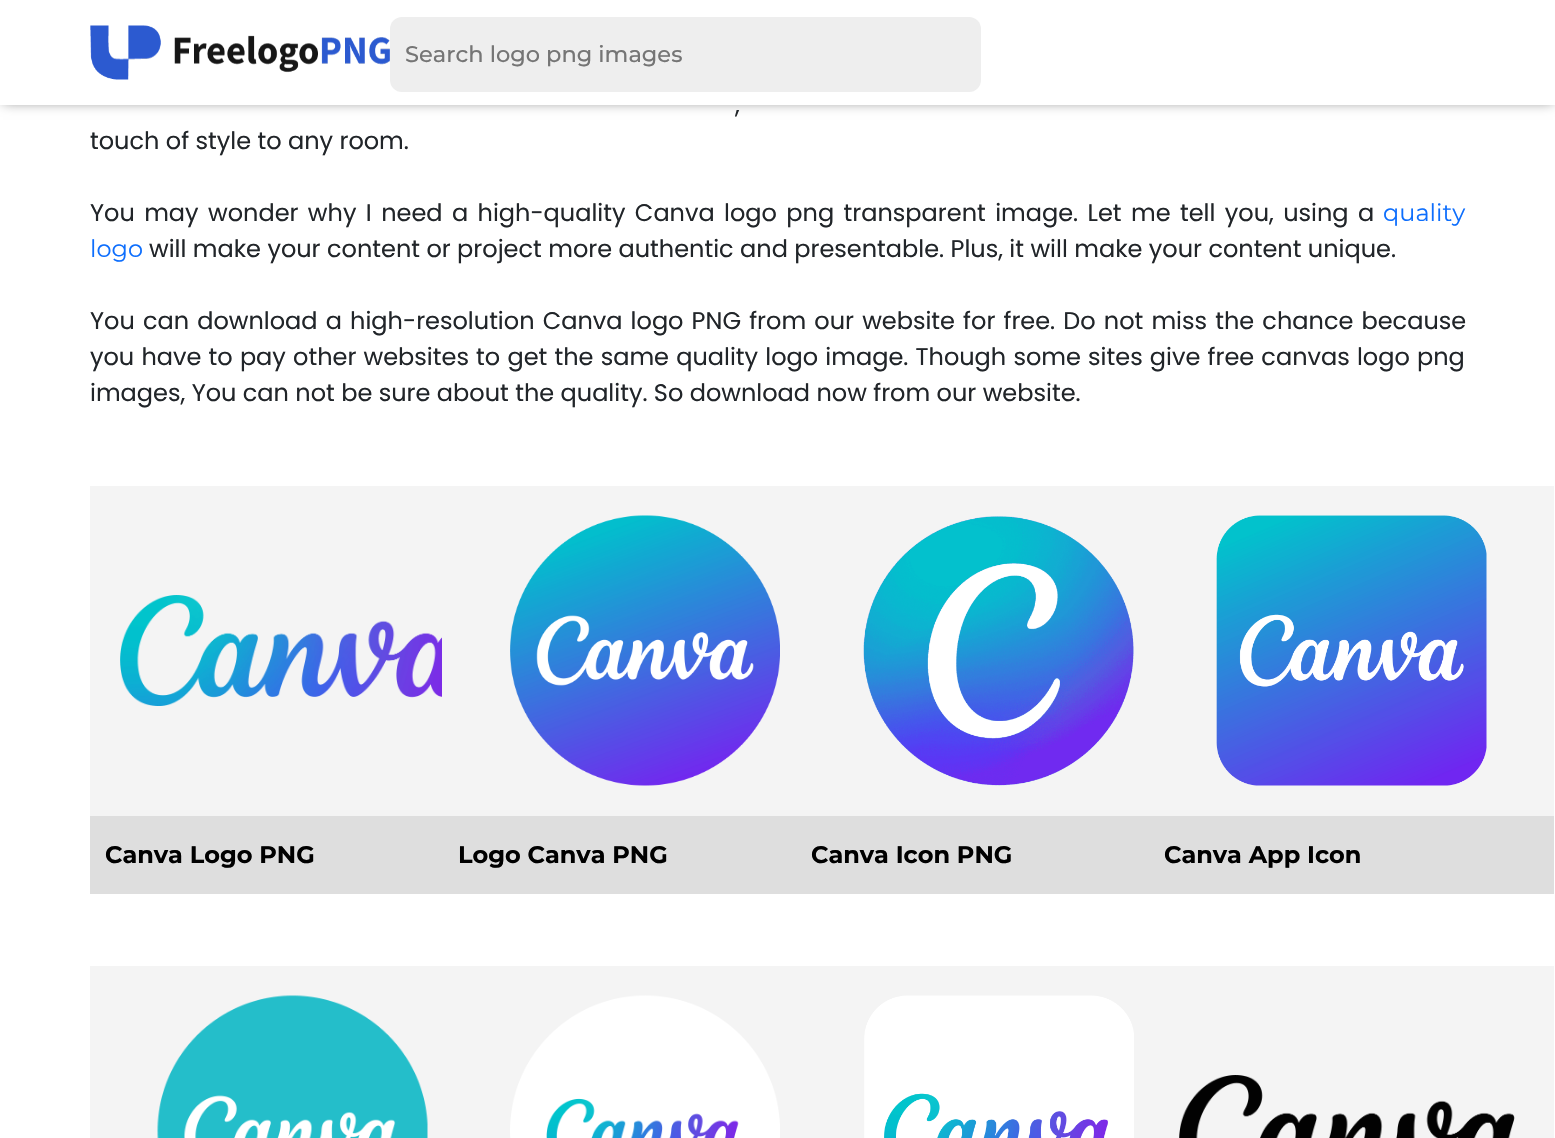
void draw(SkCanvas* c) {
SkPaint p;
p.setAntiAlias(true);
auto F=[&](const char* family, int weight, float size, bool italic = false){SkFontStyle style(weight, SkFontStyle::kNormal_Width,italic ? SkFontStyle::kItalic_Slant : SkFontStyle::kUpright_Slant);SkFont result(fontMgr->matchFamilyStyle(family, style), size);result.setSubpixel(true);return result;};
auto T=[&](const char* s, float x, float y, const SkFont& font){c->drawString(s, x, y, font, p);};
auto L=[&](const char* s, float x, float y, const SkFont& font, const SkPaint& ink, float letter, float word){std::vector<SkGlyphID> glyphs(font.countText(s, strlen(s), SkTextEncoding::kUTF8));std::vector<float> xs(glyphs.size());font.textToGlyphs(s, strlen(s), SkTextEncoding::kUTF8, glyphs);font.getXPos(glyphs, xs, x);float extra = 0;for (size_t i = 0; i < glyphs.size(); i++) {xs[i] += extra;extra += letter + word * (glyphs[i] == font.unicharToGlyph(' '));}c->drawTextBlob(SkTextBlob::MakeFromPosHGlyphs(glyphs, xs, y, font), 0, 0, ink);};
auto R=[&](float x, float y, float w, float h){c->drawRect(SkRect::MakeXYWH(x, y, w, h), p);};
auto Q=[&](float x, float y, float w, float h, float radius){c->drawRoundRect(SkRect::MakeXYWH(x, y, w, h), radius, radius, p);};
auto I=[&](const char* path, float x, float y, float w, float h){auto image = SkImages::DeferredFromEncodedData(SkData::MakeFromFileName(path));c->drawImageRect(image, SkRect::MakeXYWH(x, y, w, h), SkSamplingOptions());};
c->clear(0xffffffff);
p.setColor(0xff808080);
p.setMaskFilter(SkMaskFilter::MakeBlur(kNormal_SkBlurStyle, 6));
c->drawRect(SkRect::MakeXYWH(3,3,1550,99),p);
p.setMaskFilter(nullptr);
p.setColor(0xffffffff);
R(0,0,1555,105);
I("1.png",90,25,300,55);
p.setColor(0xffeeeeee);
Q(390,17,591,75,12);
auto f1 = F("Montserrat",500,22.5);
p.setColor(0xff757575);
T("Search logo png images",405,62,f1);
auto f2 = F("Poppins",400,24);
p.setColor(0xff212529);
L(",",735,113,f2,p,0,1);
T("touch of style to any room.",90,149,f2);
L("You may wonder why I need a high-quality Canva logo png transparent image. Let me tell you, using a",90,221,f2,p,0,3);
auto f3 = F("Montserrat",400,24);
p.setColor(0xff0d6efd);
T("quality",1383,221,f3);
T("logo",90,257,f3);
p.setColor(0xff212529);
T("will make your content or project more authentic and presentable. Plus, it will make your content unique.",149,257,f2);
L("You can download a high-resolution Canva logo PNG from our website for free. Do not miss the chance because",90,329,f2,p,0,1.75);
L("you have to pay other websites to get the same quality logo image. Though some sites give free canvas logo png",90,365,f2,p,0,.8);
T("images, You can not be sure about the quality. So download now from our website.",90,401,f2);
p.setColor(0xfff4f4f4);
R(90,486,1464,330);
I("2.png",120,595,322,111);
p.setColor(0xffdedede);
R(90,816,1464,78);
auto f4 = F("Montserrat",700,24);
p.setColor(0xff000000);
T("Canva Logo PNG",105,863,f4);
I("3.png",510,515,270,271);
T("Logo Canva PNG",458,863,f4);
I("4.png",863,516,271,270);
T("Canva Icon PNG",811,863,f4);
I("5.png",1216,515,271,271);
T("Canva App Icon",1164,863,f4);
p.setColor(0xfff4f4f4);
R(90,966,1464,172);
I("6.png",157,995,271,143);
I("7.png",510,995,270,143);
I("8.png",864,995,270,143);
I("9.png",1179,1075,336,63);
}
